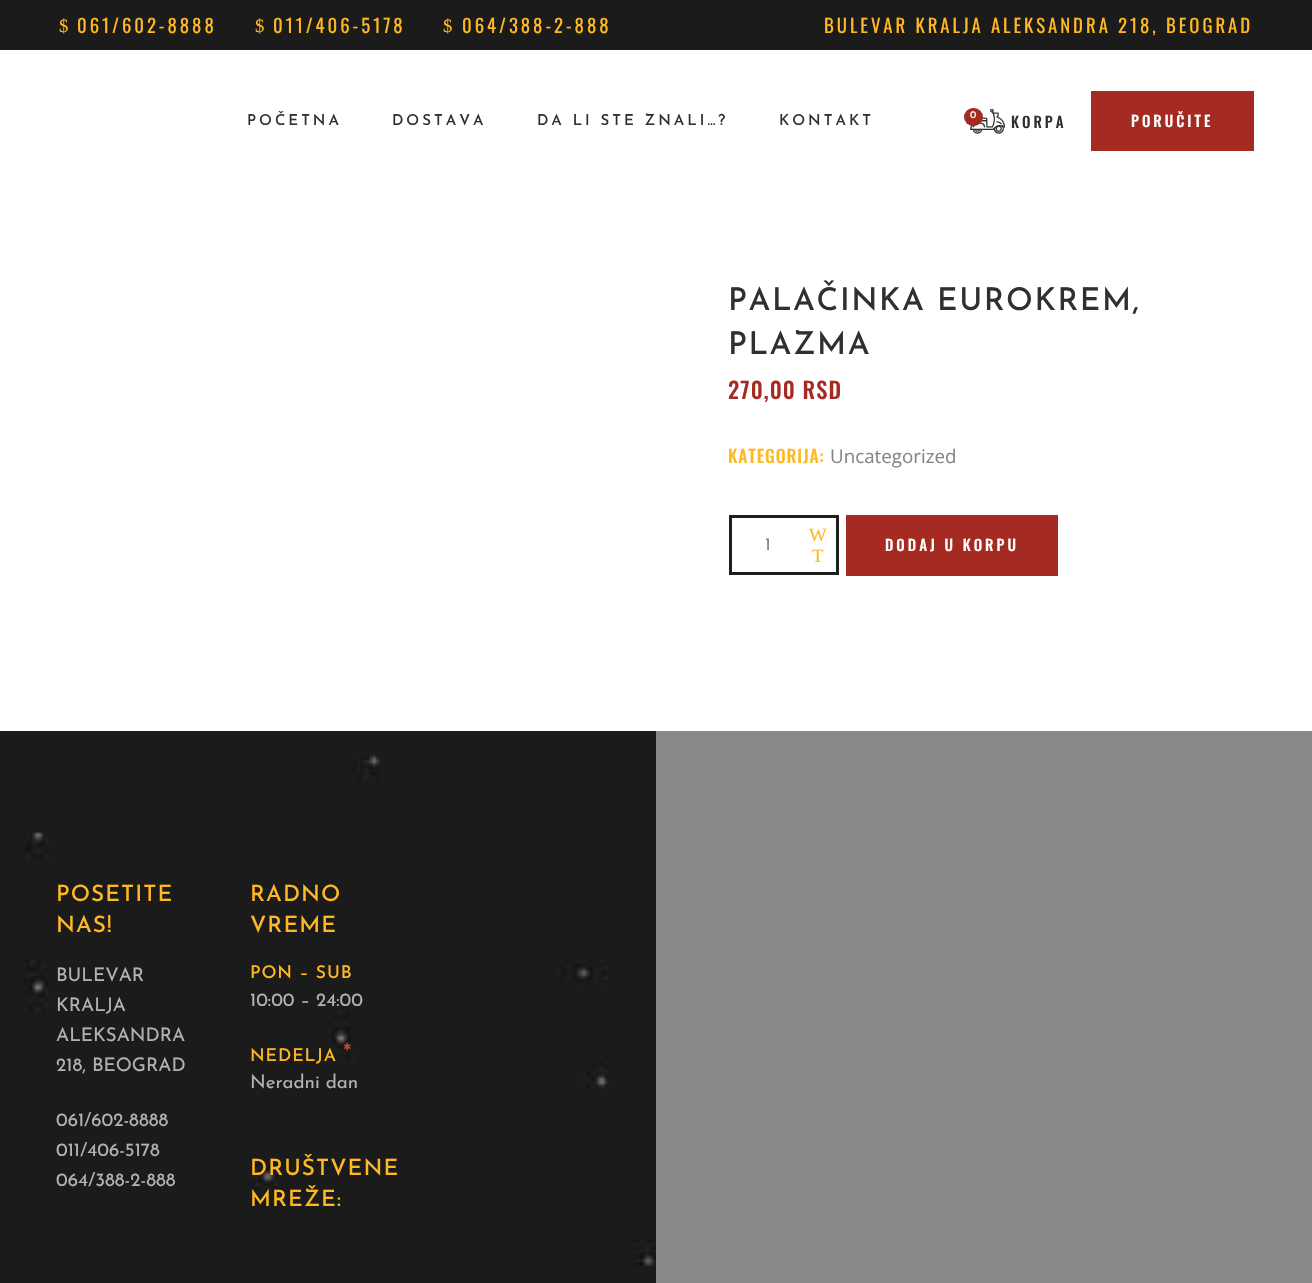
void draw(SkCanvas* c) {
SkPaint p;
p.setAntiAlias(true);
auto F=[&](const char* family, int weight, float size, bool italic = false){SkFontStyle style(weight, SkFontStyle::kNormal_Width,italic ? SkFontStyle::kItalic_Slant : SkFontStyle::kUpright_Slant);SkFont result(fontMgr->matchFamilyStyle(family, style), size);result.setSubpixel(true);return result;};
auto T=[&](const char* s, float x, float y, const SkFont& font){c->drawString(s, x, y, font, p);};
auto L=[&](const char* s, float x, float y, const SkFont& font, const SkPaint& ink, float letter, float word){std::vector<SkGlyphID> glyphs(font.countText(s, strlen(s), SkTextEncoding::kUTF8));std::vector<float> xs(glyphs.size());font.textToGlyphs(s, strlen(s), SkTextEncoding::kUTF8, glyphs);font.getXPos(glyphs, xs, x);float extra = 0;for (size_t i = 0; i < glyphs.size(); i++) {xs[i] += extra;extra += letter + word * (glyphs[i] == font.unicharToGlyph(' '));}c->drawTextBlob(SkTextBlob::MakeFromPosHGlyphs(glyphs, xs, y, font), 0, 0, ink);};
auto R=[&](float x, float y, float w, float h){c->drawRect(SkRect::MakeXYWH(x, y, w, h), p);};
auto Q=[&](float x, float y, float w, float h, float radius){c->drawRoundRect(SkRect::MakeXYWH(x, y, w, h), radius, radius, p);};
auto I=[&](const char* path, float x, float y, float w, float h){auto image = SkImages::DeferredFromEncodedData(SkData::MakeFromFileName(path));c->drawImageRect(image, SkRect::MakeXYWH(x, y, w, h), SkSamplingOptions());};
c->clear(0xffffffff);
p.setColor(0xff1b1b1b);
R(0,0,1312,50);
auto f1 = F("Liberation Serif",400,18.75);
p.setColor(0xffffb821);
L("$",59,32,f1,p,2.95,0);
auto f2 = F("Oswald",400,18.75);
L("061/602-8888",77,33,f2,p,2.95,0);
L("$",255,32,f1,p,2.95,0);
L("011/406-5178",273,33,f2,p,2.95,0);
L("$",443,32,f1,p,2.95,0);
L("064/388-2-888",462,33,f2,p,2.95,0);
L("BULEVAR KRALJA ALEKSANDRA 218, BEOGRAD",824,33,f2,p,2.95,0);
c->save();
c->clipRect(SkRect::MakeXYWH(214,111,129,20));
auto f3 = F("Josefin Sans",500,15);
p.setColor(0xff303030);
L("POČETNA",247,125,f3,p,3,0);
c->restore();
L("DOSTAVA",392,125,f3,p,3,0);
L("DA LI STE ZNALI…?",537,125,f3,p,3,0);
L("KONTAKT",779,125,f3,p,3,0);
I("1.png",970,109,35,25);
p.setColor(0xffa52b22);
Q(964,108,19,18,9);
auto f4 = F("Josefin Sans",500,10);
p.setColor(0xffffffff);
T("0",970,118,f4);
auto f5 = F("Oswald",500,15);
p.setColor(0xff303030);
L("KORPA",1011,128,f5,p,3,0);
p.setColor(0xffa52b22);
R(1091,91,163,60);
p.setColor(0xffffffff);
L("PORUČITE",1131,127,f5,p,3,0);
auto f6 = F("Josefin Sans",500,31.25);
p.setColor(0xff303030);
L("PALAČINKA EUROKREM,",728,310,f6,p,1.6,0);
L("PLAZMA",728,354,f6,p,1.6,0);
auto f7 = F("Oswald",500,22.5);
p.setColor(0xffa52b22);
L("270,00 RSD",728,399,f7,p,1.1,0);
auto f8 = F("Oswald",500,17.5);
p.setColor(0xffffb821);
L("KATEGORIJA:",728,463,f8,p,.9,0);
auto f9 = F("Open Sans",400,18.75);
p.setColor(0xff858585);
T("Uncategorized",830,463,f9);
p.setStroke(true);
p.setStrokeWidth(3);
p.setColor(0xff1f1f1f);
c->drawRect(SkRect::MakeXYWH(730.5,516.5,107,57),p);
p.setStroke(false);
p.setColor(0xffffb821);
T("W",809,541,f1);
auto f10 = F("Josefin Sans",400,17.5);
p.setColor(0xff858585);
T("1",765,550,f10);
p.setColor(0xffffb821);
T("T",812,562,f1);
p.setColor(0xffa52b22);
R(846,515,212,61);
p.setColor(0xffffffff);
L("DODAJ U KORPU",885,551,f5,p,3,0);
p.setColor(0xff1b1b1b);
R(0,731,656,552);
I("2.png",23,731,633,552);
auto f11 = F("Josefin Sans",500,22.5);
p.setColor(0xffffb821);
L("POSETITE",56,901,f11,p,1.1,0);
L("NAS!",56,932,f11,p,1.1,0);
auto f12 = F("Josefin Sans",400,18.75);
p.setColor(0xffb2b2b2);
T("BULEVAR",56,981,f12);
T("KRALJA",56,1011,f12);
T("ALEKSANDRA",56,1041,f12);
T("218, BEOGRAD",56,1071,f12);
T("061/602-8888",56,1126,f12);
T("011/406-5178",56,1156,f12);
T("064/388-2-888",56,1186,f12);
p.setColor(0xffffb821);
L("RADNO",250,901,f11,p,1.1,0);
L("VREME",250,932,f11,p,1.1,0);
auto f13 = F("Josefin Sans",500,17.5);
L("PON – SUB",250,978,f13,p,.9,0);
p.setColor(0xffb2b2b2);
T("10:00 – 24:00",250,1006,f12);
p.setColor(0xffffb821);
L("NEDELJA",250,1061,f13,p,.9,0);
auto f14 = F("Josefin Sans",500,25);
p.setColor(0xffd2401e);
L("*",343,1061,f14,p,.9,0);
p.setColor(0xffb2b2b2);
T("Neradni dan",250,1088,f12);
p.setColor(0xffffb821);
L("DRUŠTVENE",250,1175,f11,p,1.1,0);
L("MREŽE:",250,1206,f11,p,1.1,0);
p.setColor(0xff888888);
R(656,731,656,552);
}
